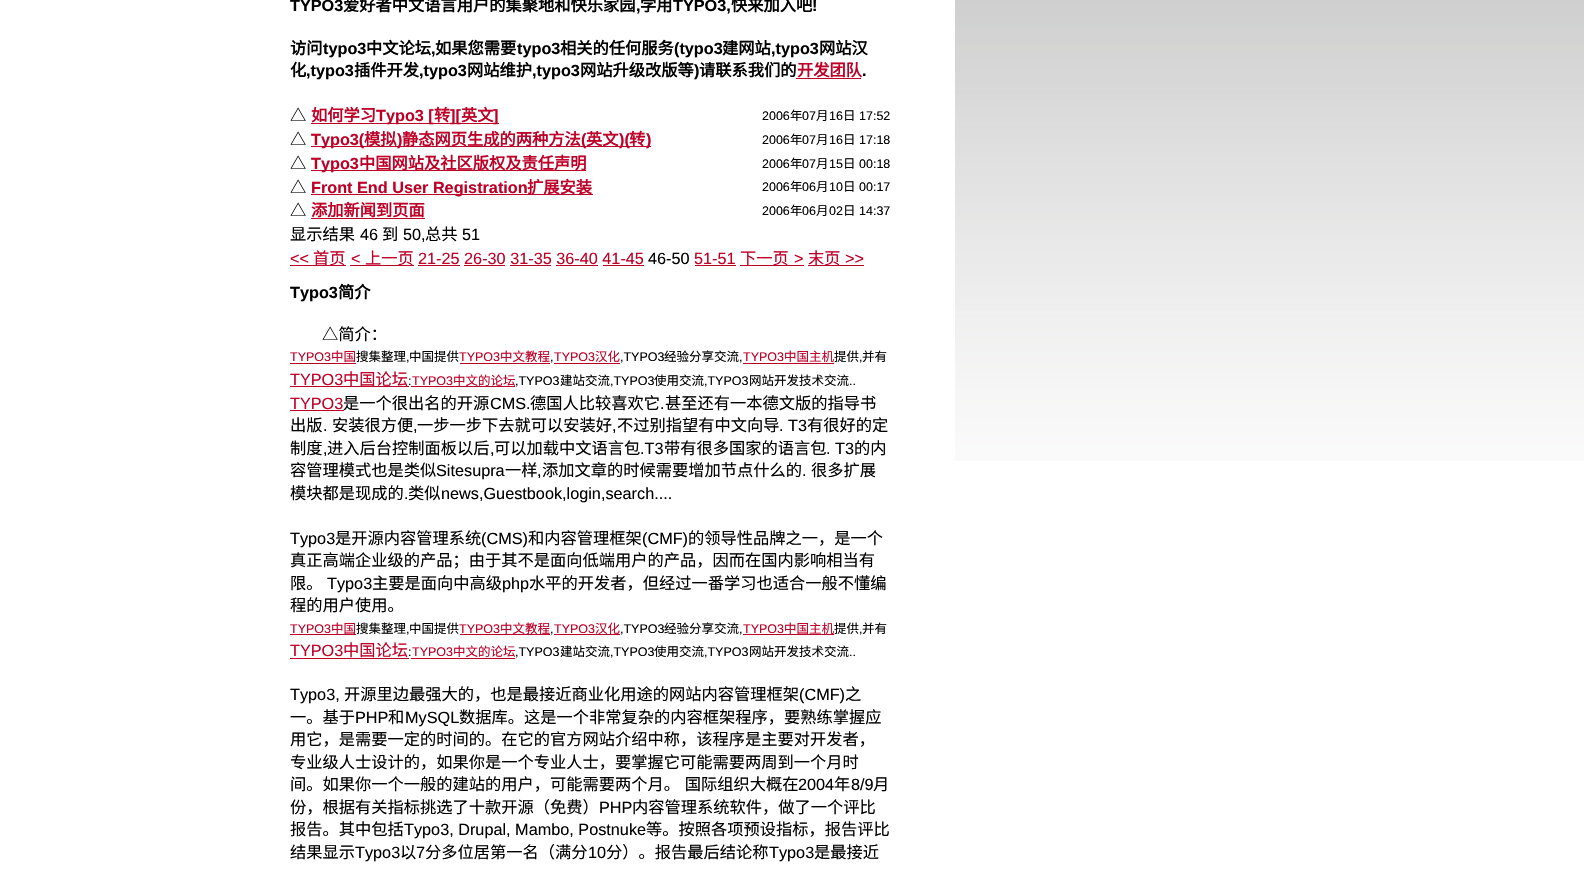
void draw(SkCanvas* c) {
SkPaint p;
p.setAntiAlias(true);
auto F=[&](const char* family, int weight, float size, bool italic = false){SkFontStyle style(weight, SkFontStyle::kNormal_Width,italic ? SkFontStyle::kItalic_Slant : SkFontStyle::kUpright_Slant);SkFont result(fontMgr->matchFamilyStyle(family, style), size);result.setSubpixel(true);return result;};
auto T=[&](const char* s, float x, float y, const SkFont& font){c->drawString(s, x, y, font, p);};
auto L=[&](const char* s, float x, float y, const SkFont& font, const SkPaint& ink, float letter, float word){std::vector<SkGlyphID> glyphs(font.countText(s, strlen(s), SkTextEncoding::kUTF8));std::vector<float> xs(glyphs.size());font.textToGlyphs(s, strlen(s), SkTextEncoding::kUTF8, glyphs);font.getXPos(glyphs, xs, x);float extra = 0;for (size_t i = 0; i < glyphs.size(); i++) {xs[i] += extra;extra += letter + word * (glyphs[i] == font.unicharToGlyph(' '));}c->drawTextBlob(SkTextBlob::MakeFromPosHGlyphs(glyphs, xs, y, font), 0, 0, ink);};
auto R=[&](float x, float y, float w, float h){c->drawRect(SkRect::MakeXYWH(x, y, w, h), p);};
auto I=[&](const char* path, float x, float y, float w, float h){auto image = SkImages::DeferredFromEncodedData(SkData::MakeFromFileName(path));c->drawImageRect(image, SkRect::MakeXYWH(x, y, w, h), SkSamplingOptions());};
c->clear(0xffffffff);
I("1.png",955,0,629,461);
auto f1 = F("Liberation Sans",700,16.25);
p.setColor(0xff000000);
T("TYPO3",290,11,f1);
auto f2 = F("Noto Sans CJK SC",700,16.25);
T("爱好者中文语言用户的集聚地和快乐家园",343,11,f2);
T(",",636,11,f1);
T("学用",640,11,f2);
T("TYPO3,",673,11,f1);
T("快来加入吧",731,11,f2);
T("!",812,11,f1);
T("访问",290,54,f2);
T("typo3",323,54,f1);
T("中文论坛",366,54,f2);
T(",",431,54,f1);
T("如果您需要",435,54,f2);
T("typo3",517,54,f1);
T("相关的任何服务",560,54,f2);
T("(typo3",674,54,f1);
T("建网站",722,54,f2);
T(",typo3",771,54,f1);
T("网站汉",819,54,f2);
T("化",290,76,f2);
T(",typo3",306,76,f1);
T("插件开发",354,76,f2);
T(",typo3",419,76,f1);
T("网站维护",467,76,f2);
T(",typo3",532,76,f1);
T("网站升级改版等",580,76,f2);
T(")",694,76,f1);
T("请联系我们的",699,76,f2);
p.setColor(0xffbe0027);
T("开发团队",797,76,f2);
p.setColor(0xff000000);
T(".",862,76,f1);
p.setColor(0xffbe0027);
R(796,78,65,1);
auto f3 = F("Noto Sans CJK SC",400,16.25);
p.setColor(0xff000000);
T("△",290,121,f3);
p.setColor(0xffbe0027);
T("如何学习",311,121,f2);
R(311,123,188,1);
T("Typo3 [",376,121,f1);
T("转",434,121,f2);
T("][",450,121,f1);
T("英文",461,121,f2);
T("]",493,121,f1);
auto f4 = F("Liberation Sans",400,12.5);
p.setColor(0xff000000);
T("2006",762,120,f4);
auto f5 = F("Noto Sans CJK SC",400,12.5);
T("年",790,120,f5);
T("07",802,120,f4);
T("月",816,120,f5);
T("16",829,120,f4);
T("日",843,120,f5);
T("17:52",859,120,f4);
T("△",290,145,f3);
p.setColor(0xffbe0027);
R(311,146,340,1);
T("Typo3(",311,145,f1);
T("模拟",364,145,f2);
T(")",397,145,f1);
T("静态网页生成的两种方法",402,145,f2);
T("(",581,145,f1);
T("英文",586,145,f2);
T(")(",619,145,f1);
T("转",629,145,f2);
T(")",646,145,f1);
p.setColor(0xff000000);
T("2006",762,144,f4);
T("年",790,144,f5);
T("07",802,144,f4);
T("月",816,144,f5);
T("16",829,144,f4);
T("日",843,144,f5);
T("17:18",859,144,f4);
T("△",290,169,f3);
p.setColor(0xffbe0027);
R(311,170,275,1);
T("Typo3",311,169,f1);
T("中国网站及社区版权及责任声明",359,169,f2);
p.setColor(0xff000000);
T("2006",762,168,f4);
T("年",790,168,f5);
T("07",802,168,f4);
T("月",816,168,f5);
T("15",829,168,f4);
T("日",843,168,f5);
T("00:18",859,168,f4);
T("△",290,193,f3);
p.setColor(0xffbe0027);
R(311,194,282,1);
T("Front End User Registration",311,193,f1);
T("扩展安装",527,193,f2);
p.setColor(0xff000000);
T("2006",762,191,f4);
T("年",790,191,f5);
T("06",802,191,f4);
T("月",816,191,f5);
T("10",829,191,f4);
T("日",843,191,f5);
T("00:17",859,191,f4);
T("△",290,216,f3);
p.setColor(0xffbe0027);
T("添加新闻到页面",311,216,f2);
R(311,218,114,1);
p.setColor(0xff000000);
T("2006",762,215,f4);
T("年",790,215,f5);
T("06",802,215,f4);
T("月",816,215,f5);
T("02",829,215,f4);
T("日",843,215,f5);
T("14:37",859,215,f4);
T("显示结果",290,240,f3);
auto f6 = F("Liberation Sans",400,16.25);
T("46",360,240,f6);
T("到",382,240,f3);
T("50,",403,240,f6);
T("总共",425,240,f3);
T("51",462,240,f6);
p.setColor(0xffbe0027);
T("<<",290,264,f6);
R(290,265,56,1);
T("首页",313,264,f3);
T("<",351,264,f6);
R(350,265,64,1);
T("上一页",365,264,f3);
T("21-25 26-30 31-35 36-40 41-45",418,264,f6);
R(418,265,42,1);
p.setColor(0xff000000);
T("46-50",648,264,f6);
p.setColor(0xffbe0027);
T("51-51",694,264,f6);
R(695,265,41,1);
R(740,265,64,1);
T("下一页",740,264,f3);
T(">",794,264,f6);
R(808,265,56,1);
T("末页",808,264,f3);
T(">>",845,264,f6);
R(464,265,41,1);
R(510,265,41,1);
R(556,265,42,1);
R(603,265,41,1);
p.setColor(0xff000000);
T("Typo3",290,298,f1);
T("简介",338,298,f2);
T("△简介：",322,340,f3);
p.setColor(0xffbe0027);
T("TYPO3",290,361,f4);
R(290,363,66,1);
T("中国",331,361,f5);
p.setColor(0xff000000);
T("搜集整理",356,361,f5);
T(",",406,361,f4);
T("中国提供",409,361,f5);
p.setColor(0xffbe0027);
T("TYPO3",459,361,f4);
R(460,363,90,1);
T("中文教程",500,361,f5);
p.setColor(0xff000000);
T(",",550,361,f4);
p.setColor(0xffbe0027);
T("TYPO3",554,361,f4);
R(554,363,66,1);
T("汉化",595,361,f5);
p.setColor(0xff000000);
T(",TYPO3",620,361,f4);
T("经验分享交流",664,361,f5);
T(",",739,361,f4);
p.setColor(0xffbe0027);
T("TYPO3",743,361,f4);
R(743,363,91,1);
T("中国主机",784,361,f5);
p.setColor(0xff000000);
T("提供",834,361,f5);
T(",",859,361,f4);
T("并有",862,361,f5);
p.setColor(0xffbe0027);
T("TYPO3",290,385,f6);
R(290,386,119,1);
T("中国论坛",343,385,f3);
p.setColor(0xff000000);
T(":",408,385,f4);
p.setColor(0xffbe0027);
T("TYPO3",412,385,f4);
R(411,386,104,1);
T("中文的论坛",453,385,f5);
p.setColor(0xff000000);
T(",TYPO3",515,385,f4);
T("建站交流",560,385,f5);
T(",TYPO3",610,385,f4);
T("使用交流",654,385,f5);
T(",TYPO3",704,385,f4);
T("网站开发技术交流",749,385,f5);
T("..",849,385,f4);
p.setColor(0xffbe0027);
T("TYPO3",290,409,f6);
R(290,410,54,1);
p.setColor(0xff000000);
T("是一个很出名的开源",343,409,f3);
T("CMS.",490,409,f6);
T("德国人比较喜欢它",530,409,f3);
T(".",660,409,f6);
T("甚至还有一本德文版的指导书",665,409,f3);
T("出版",290,431,f3);
T(".",323,431,f6);
T("安装很方便",332,431,f3);
T(",",413,431,f6);
T("一步一步下去就可以安装好",417,431,f3);
T(",",612,431,f6);
T("不过别指望有中文向导",617,431,f3);
T(". T3",779,431,f6);
T("有很好的定",807,431,f3);
T("制度",290,454,f3);
T(",",323,454,f6);
T("进入后台控制面板以后",327,454,f3);
T(",",490,454,f6);
T("可以加载中文语言包",494,454,f3);
T(".T3",640,454,f6);
T("带有很多国家的语言包",664,454,f3);
T(". T3",826,454,f6);
T("的内",854,454,f3);
T("容管理模式也是类似",290,476,f3);
T("Sitesupra",436,476,f6);
T("一样",505,476,f3);
T(",",537,476,f6);
T("添加文章的时候需要增加节点什么的",542,476,f3);
T(".",802,476,f6);
T("很多扩展",811,476,f3);
T("模块都是现成的",290,499,f3);
T(".",404,499,f6);
T("类似",408,499,f3);
T("news,Guestbook,login,search....",441,499,f6);
T("Typo3",290,544,f6);
T("是开源内容管理系统",335,544,f3);
T("(CMS)",481,544,f6);
T("和内容管理框架",528,544,f3);
T("(CMF)",642,544,f6);
T("的领导性品牌之一，是一个",688,544,f3);
T("真正高端企业级的产品；由于其不是面向低端用户的产品，因而在国内影响相当有",290,566,f3);
T("限。",290,589,f3);
T("Typo3",327,589,f6);
T("主要是面向中高级",372,589,f3);
T("php",502,589,f6);
T("水平的开发者，但经过一番学习也适合一般不懂编",529,589,f3);
T("程的用户使用。",290,611,f3);
p.setColor(0xffbe0027);
T("TYPO3",290,633,f4);
R(290,634,66,1);
T("中国",331,633,f5);
p.setColor(0xff000000);
T("搜集整理",356,633,f5);
T(",",406,633,f4);
T("中国提供",409,633,f5);
p.setColor(0xffbe0027);
T("TYPO3",459,633,f4);
R(460,634,90,1);
T("中文教程",500,633,f5);
p.setColor(0xff000000);
T(",",550,633,f4);
p.setColor(0xffbe0027);
T("TYPO3",554,633,f4);
R(554,634,66,1);
T("汉化",595,633,f5);
p.setColor(0xff000000);
T(",TYPO3",620,633,f4);
T("经验分享交流",664,633,f5);
T(",",739,633,f4);
p.setColor(0xffbe0027);
T("TYPO3",743,633,f4);
R(743,634,91,1);
T("中国主机",784,633,f5);
p.setColor(0xff000000);
T("提供",834,633,f5);
T(",",859,633,f4);
T("并有",862,633,f5);
p.setColor(0xffbe0027);
T("TYPO3",290,656,f6);
R(290,658,119,1);
T("中国论坛",343,656,f3);
p.setColor(0xff000000);
T(":",408,656,f4);
p.setColor(0xffbe0027);
T("TYPO3",412,656,f4);
R(411,658,104,1);
T("中文的论坛",453,656,f5);
p.setColor(0xff000000);
T(",TYPO3",515,656,f4);
T("建站交流",560,656,f5);
T(",TYPO3",610,656,f4);
T("使用交流",654,656,f5);
T(",TYPO3",704,656,f4);
T("网站开发技术交流",749,656,f5);
T("..",849,656,f4);
T("Typo3,",290,700,f6);
T("开源里边最强大的，也是最接近商业化用途的网站内容管理框架",344,700,f3);
T("(CMF)",799,700,f6);
T("之",845,700,f3);
T("一。基于",290,723,f3);
T("PHP",355,723,f6);
T("和",388,723,f3);
T("MySQL",405,723,f6);
T("数据库。这是一个非常复杂的内容框架程序，要熟练掌握应",459,723,f3);
T("用它，是需要一定的时间的。在它的官方网站介绍中称，该程序是主要对开发者，",290,745,f3);
T("专业级人士设计的，如果你是一个专业人士，要掌握它可能需要两周到一个月时",290,768,f3);
L("间。如果你一个一般的建站的用户，可能需要两个月。 国际组织大概在",290,790,f3,p,0,1);
T("2004",798,790,f6);
T("年",834,790,f3);
T("8/9",851,790,f6);
T("月",873,790,f3);
T("份，根据有关指标挑选了十款开源（免费）",290,813,f3);
T("PHP",599,813,f6);
T("内容管理系统软件，做了一个评比",632,813,f3);
T("报告。其中包括",290,835,f3);
T("Typo3, Drupal, Mambo, Postnuke",404,835,f6);
T("等。按照各项预设指标，报告评比",646,835,f3);
T("结果显示",290,858,f3);
T("Typo3",355,858,f6);
T("以",400,858,f3);
T("7",416,858,f6);
T("分多位居第一名（满分",425,858,f3);
T("10",588,858,f6);
T("分）。报告最后结论称",606,858,f3);
T("Typo3",769,858,f6);
T("是最接近",814,858,f3);
}
